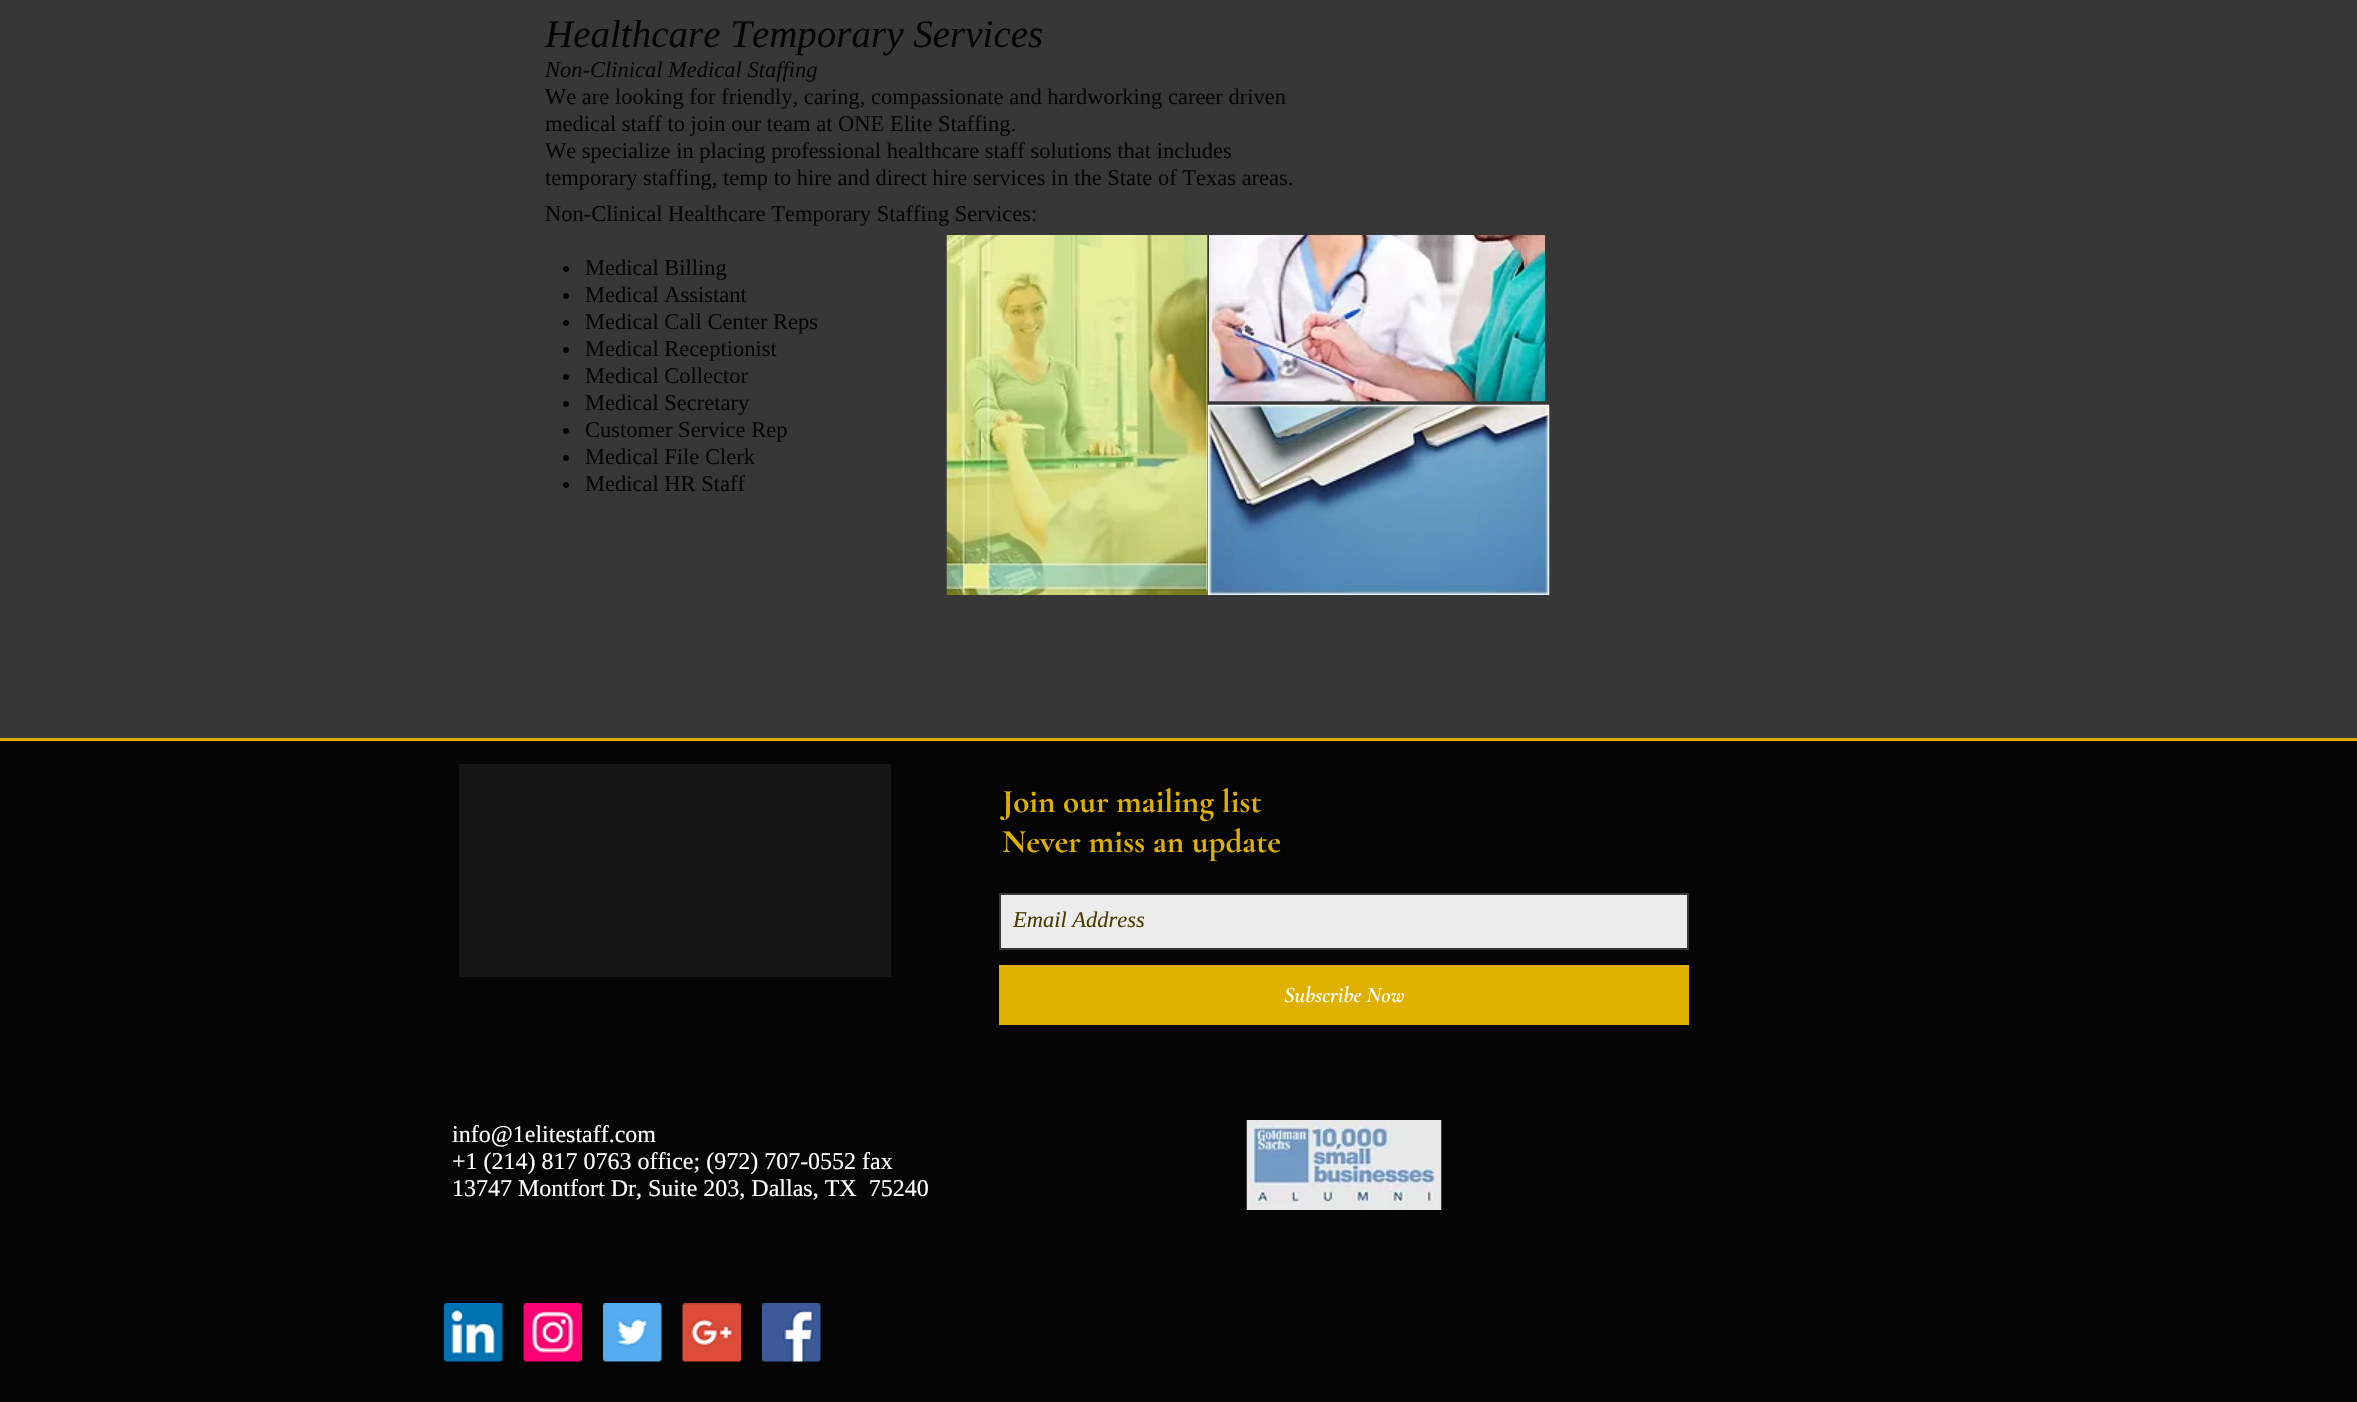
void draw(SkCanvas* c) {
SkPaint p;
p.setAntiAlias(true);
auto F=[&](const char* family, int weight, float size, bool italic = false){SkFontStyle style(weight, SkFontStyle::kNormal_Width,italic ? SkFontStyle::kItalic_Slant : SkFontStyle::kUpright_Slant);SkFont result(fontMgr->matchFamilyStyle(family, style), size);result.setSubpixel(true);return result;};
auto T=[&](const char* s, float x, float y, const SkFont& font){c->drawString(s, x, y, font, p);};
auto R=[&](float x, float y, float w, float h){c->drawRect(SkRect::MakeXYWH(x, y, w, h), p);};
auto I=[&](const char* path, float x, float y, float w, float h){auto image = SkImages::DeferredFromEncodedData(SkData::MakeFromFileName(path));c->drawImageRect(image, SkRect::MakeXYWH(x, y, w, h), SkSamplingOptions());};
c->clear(0xff373737);
auto f1 = F("Liberation Serif",400,39,true);
p.setColor(0xff050505);
T("Healthcare Temporary Services",545,47,f1);
auto f2 = F("Liberation Serif",400,22.5,true);
T("Non-Clinical Medical Staffing",545,77,f2);
auto f3 = F("Liberation Serif",400,22.5);
T("We are looking for friendly, caring, compassionate and hardworking career driven",545,104,f3);
T("medical staff to join our team at ONE Elite Staffing.",545,131,f3);
T("We specialize in placing professional healthcare staff solutions that includes",545,158,f3);
T("temporary staffing, temp to hire and direct hire services in the State of Texas areas.",545,185,f3);
T("Non-Clinical Healthcare Temporary Staffing Services:",545,221,f3);
c->drawCircle(566,269,3,p);
T("Medical Billing",585,275,f3);
c->drawCircle(566,296,3,p);
T("Medical Assistant",585,302,f3);
c->drawCircle(566,323,3,p);
T("Medical Call Center Reps",585,329,f3);
c->drawCircle(566,350,3,p);
T("Medical Receptionist",585,356,f3);
c->drawCircle(566,377,3,p);
T("Medical Collector",585,383,f3);
c->drawCircle(566,404,3,p);
T("Medical Secretary",585,410,f3);
c->drawCircle(566,431,3,p);
T("Customer Service Rep",585,437,f3);
c->drawCircle(566,458,3,p);
T("Medical File Clerk",585,464,f3);
c->drawCircle(566,485,3,p);
T("Medical HR Staff",585,491,f3);
I("1.png",946,235,262,360);
I("2.png",1209,235,336,167);
I("3.png",1207,404,343,191);
R(0,741,2357,661);
p.setColor(0xffdeb100);
R(0,738,2357,3);
p.setColor(0xff161616);
R(459,764,432,213);
auto f4 = F("Cormorant Garamond",700,33);
p.setColor(0xffdeb100);
T("Join our mailing list",1002,812,f4);
T("Never miss an update",1002,852,f4);
p.setColor(0xffececec);
c->drawRect(SkRect::MakeXYWH(1000,894,688,55),p);
p.setStroke(true);
p.setStrokeWidth(2);
p.setColor(0xff373737);
c->drawRect(SkRect::MakeXYWH(1000,894,688,55),p);
p.setStroke(false);
p.setColor(0xff4a3b00);
T("Email Address",1013,927,f2);
p.setColor(0xffdeb100);
R(999,965,690,60);
auto f5 = F("Cormorant Garamond",600,22.5,true);
p.setColor(0xffffffff);
T("Subscribe Now",1284,1002,f5);
auto f6 = F("Liberation Serif",400,24);
T("info@1elitestaff.com",452,1142,f6);
T("+1 (214) 817 0763 office; (972) 707-0552 fax",452,1169,f6);
T("13747 Montfort Dr, Suite 203, Dallas, TX  75240",452,1196,f6);
I("4.png",1246,1120,196,90);
I("5.png",444,1303,59,59);
I("6.png",523,1303,59,59);
I("7.png",603,1303,59,59);
I("8.png",682,1303,59,59);
I("9.png",762,1303,59,59);
}
